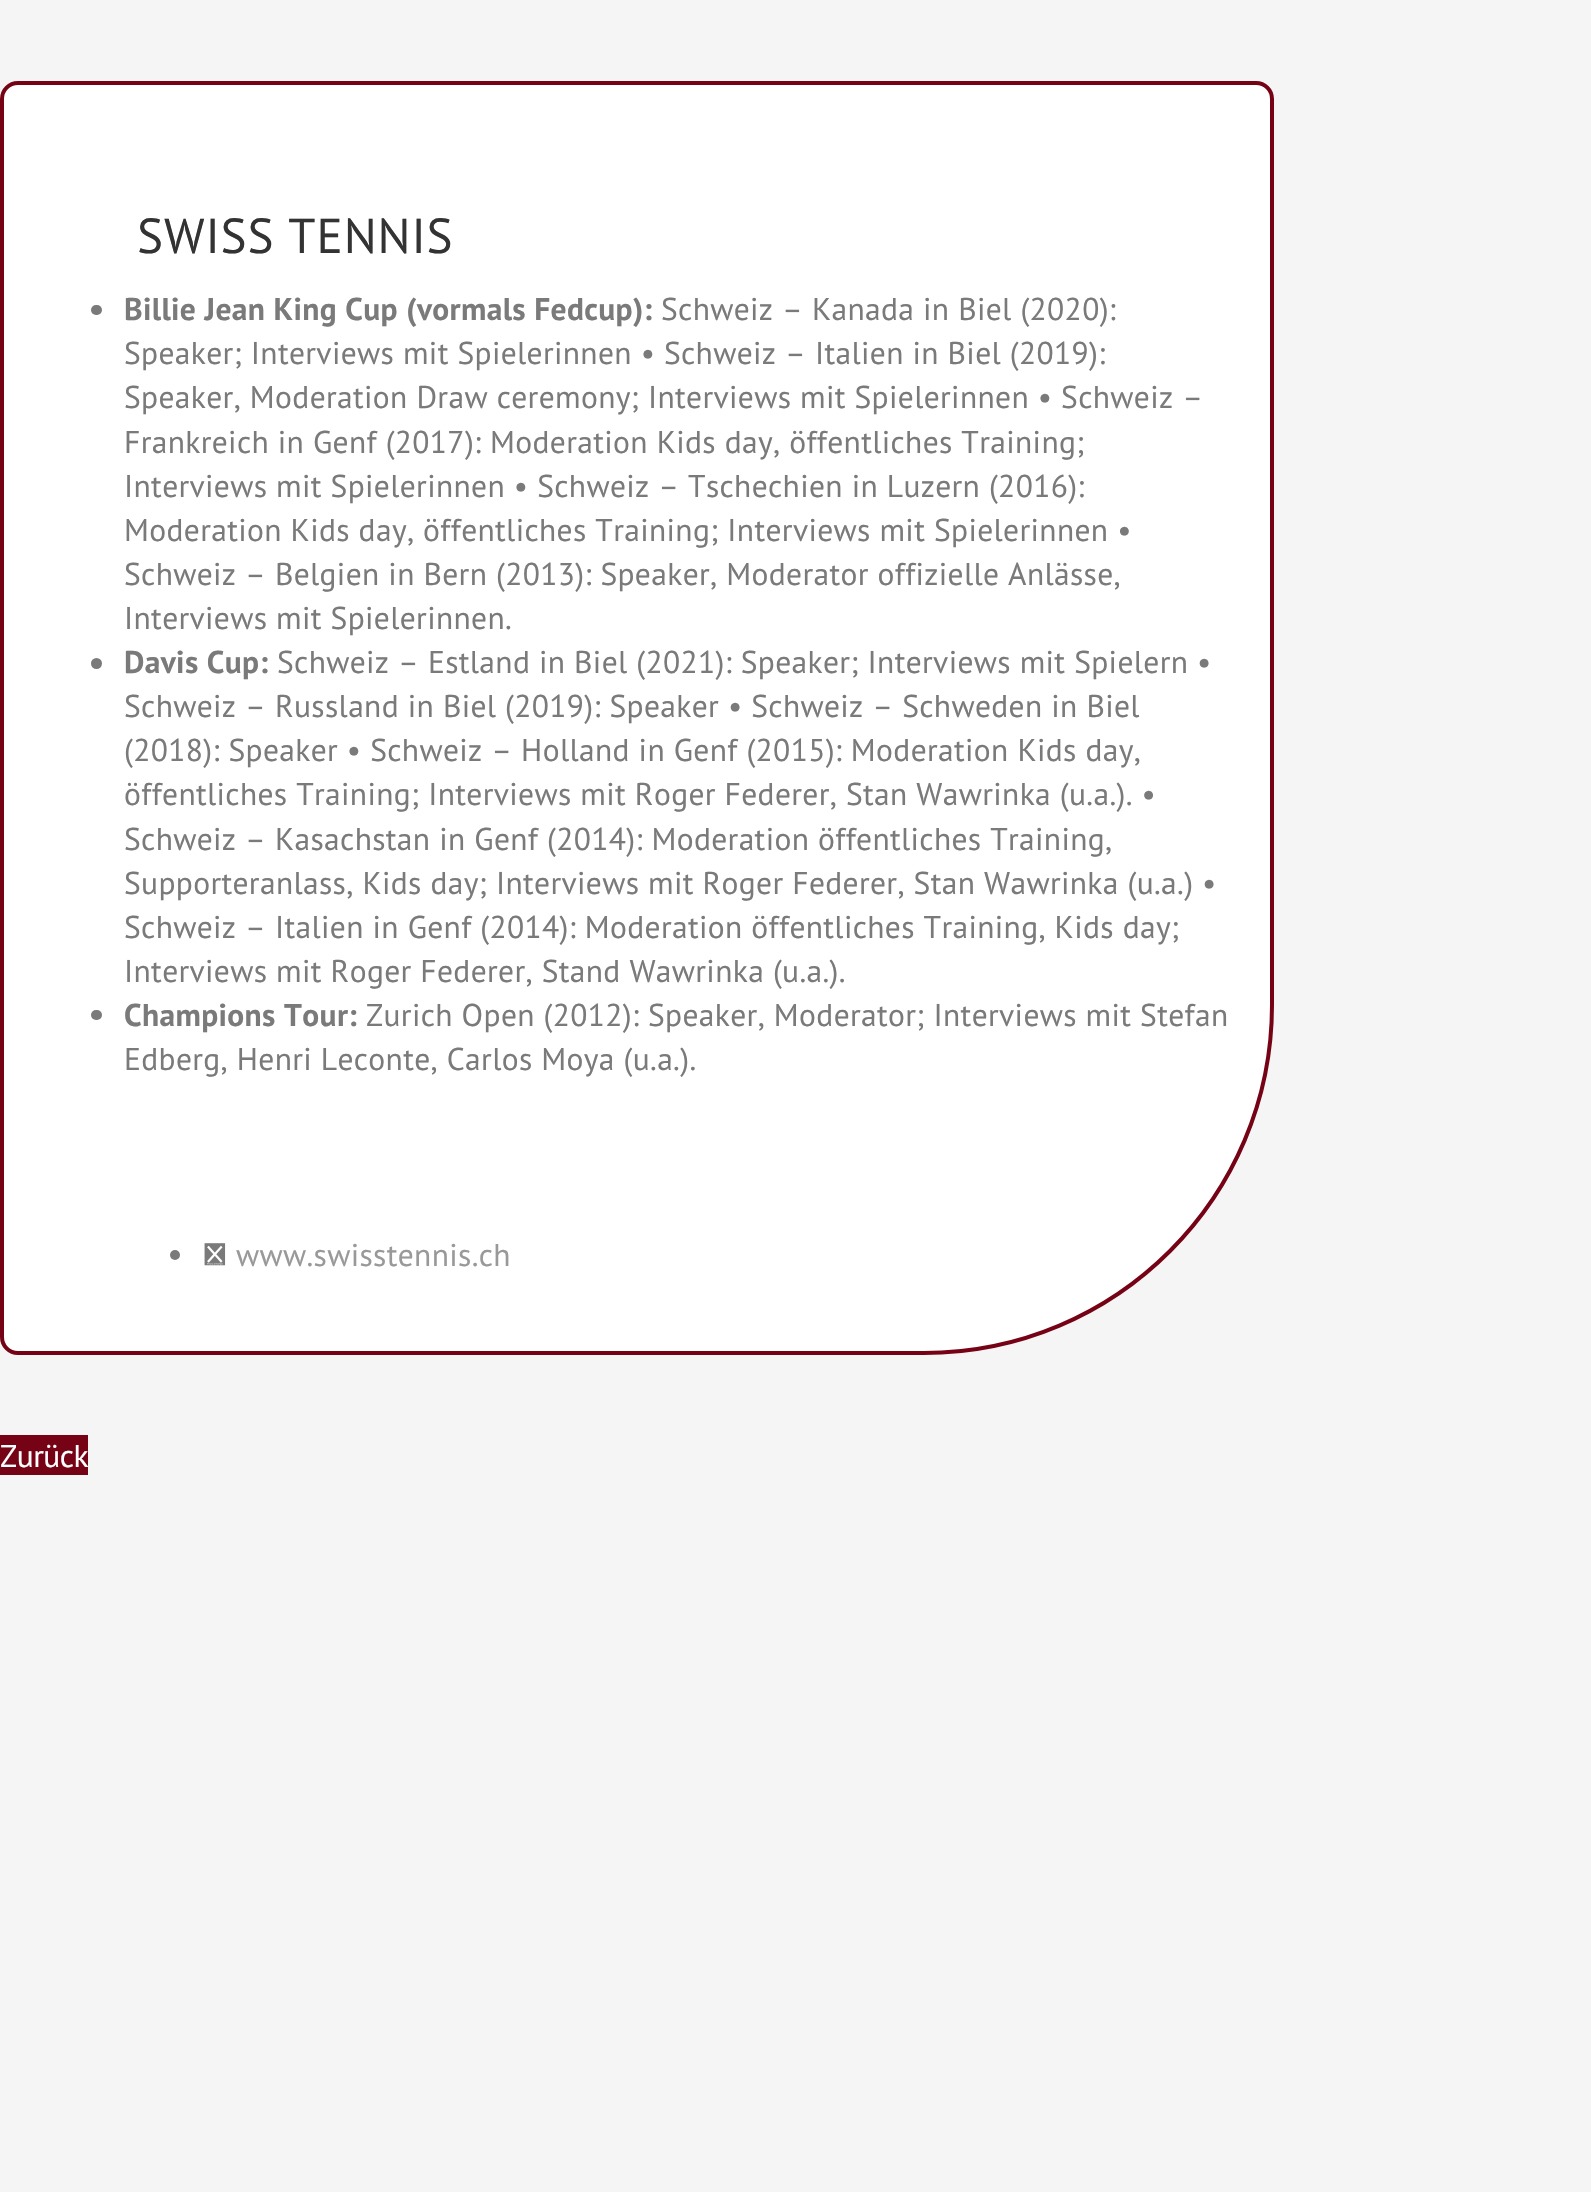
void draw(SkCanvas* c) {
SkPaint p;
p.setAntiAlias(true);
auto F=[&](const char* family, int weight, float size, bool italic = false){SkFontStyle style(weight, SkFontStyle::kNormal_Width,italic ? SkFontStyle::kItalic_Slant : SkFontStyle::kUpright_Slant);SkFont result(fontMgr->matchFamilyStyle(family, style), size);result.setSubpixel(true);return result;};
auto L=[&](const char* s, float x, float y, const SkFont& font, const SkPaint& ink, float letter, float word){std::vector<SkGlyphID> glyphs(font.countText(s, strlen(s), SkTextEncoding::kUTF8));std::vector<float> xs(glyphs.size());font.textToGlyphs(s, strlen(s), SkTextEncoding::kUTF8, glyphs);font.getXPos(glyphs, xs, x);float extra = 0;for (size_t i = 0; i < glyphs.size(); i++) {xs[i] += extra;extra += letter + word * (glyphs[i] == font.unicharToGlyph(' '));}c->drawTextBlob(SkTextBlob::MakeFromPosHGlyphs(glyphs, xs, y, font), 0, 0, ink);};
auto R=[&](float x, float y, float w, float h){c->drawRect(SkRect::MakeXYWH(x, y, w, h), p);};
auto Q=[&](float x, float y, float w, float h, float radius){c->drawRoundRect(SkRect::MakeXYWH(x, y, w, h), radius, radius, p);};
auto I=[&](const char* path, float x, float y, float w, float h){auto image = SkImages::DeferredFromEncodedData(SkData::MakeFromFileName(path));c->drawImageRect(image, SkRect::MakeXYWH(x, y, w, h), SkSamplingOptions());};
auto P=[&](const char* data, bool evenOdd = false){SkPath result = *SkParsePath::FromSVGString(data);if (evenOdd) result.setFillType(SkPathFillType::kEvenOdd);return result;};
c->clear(0xfff5f5f5);
p.setColor(0xffffffff);
c->drawPath(P("M18 83h1238c9 0 16 7 16 16v906c0 192-156 348-348 348h-906c-9 0-16-7-16-16v-1238c0-9 7-16 16-16z"),p);
p.setStroke(true);
p.setStrokeWidth(4);
p.setColor(0xff750315);
c->drawPath(P("M18 83h1238c9 0 16 7 16 16v906c0 192-156 348-348 348h-906c-9 0-16-7-16-16v-1238c0-9 7-16 16-16z"),p);
auto f1 = F("PT Sans",400,49);
p.setStroke(false);
p.setColor(0xff333333);
L("SWISS TENNIS",137,253,f1,p,.9,0);
p.setColor(0xff7a7a7a);
Q(91,305,11,10,5);
auto f2 = F("PT Sans",700,31.5);
L("Billie Jean King Cup (vormals Fedcup):",124,320,f2,p,.35,0);
auto f3 = F("PT Sans",400,31.5);
L("Schweiz – Kanada in Biel (2020):",661,320,f3,p,.35,0);
L("Speaker; Interviews mit Spielerinnen • Schweiz – Italien in Biel (2019):",124,364,f3,p,.35,0);
L("Speaker, Moderation Draw ceremony; Interviews mit Spielerinnen • Schweiz –",124,408,f3,p,.35,0);
L("Frankreich in Genf (2017): Moderation Kids day, öffentliches Training;",124,453,f3,p,.35,0);
L("Interviews mit Spielerinnen • Schweiz – Tschechien in Luzern (2016):",124,497,f3,p,.35,0);
L("Moderation Kids day, öffentliches Training; Interviews mit Spielerinnen •",124,541,f3,p,.35,0);
L("Schweiz – Belgien in Bern (2013): Speaker, Moderator offizielle Anlässe,",124,585,f3,p,.35,0);
L("Interviews mit Spielerinnen.",124,629,f3,p,.35,0);
c->drawCircle(96.5,663.5,5.5,p);
L("Davis Cup:",124,673,f2,p,.35,0);
L("Schweiz – Estland in Biel (2021): Speaker; Interviews mit Spielern •",277,673,f3,p,.35,0);
L("Schweiz – Russland in Biel (2019): Speaker • Schweiz – Schweden in Biel",124,717,f3,p,.35,0);
L("(2018): Speaker • Schweiz – Holland in Genf (2015): Moderation Kids day,",124,761,f3,p,.35,0);
L("öffentliches Training; Interviews mit Roger Federer, Stan Wawrinka (u.a.). •",124,805,f3,p,.35,0);
L("Schweiz – Kasachstan in Genf (2014): Moderation öffentliches Training,",124,850,f3,p,.35,0);
L("Supporteranlass, Kids day; Interviews mit Roger Federer, Stan Wawrinka (u.a.) •",124,894,f3,p,.35,0);
L("Schweiz – Italien in Genf (2014): Moderation öffentliches Training, Kids day;",124,938,f3,p,.35,0);
L("Interviews mit Roger Federer, Stand Wawrinka (u.a.).",124,982,f3,p,.35,0);
Q(91,1010,11,10,5);
L("Champions Tour:",124,1026,f2,p,.35,0);
L("Zurich Open (2012): Speaker, Moderator; Interviews mit Stefan",366,1026,f3,p,.35,0);
L("Edberg, Henri Leconte, Carlos Moya (u.a.).",124,1070,f3,p,.35,0);
c->drawCircle(175,1255,5,p);
I("1.png",204,1243,22,23);
p.setColor(0xff999999);
L("www.swisstennis.ch",236,1266,f3,p,.35,0);
p.setColor(0xff750315);
R(0,1435,88,40);
p.setColor(0xffffffff);
L("Zurück",0,1467,f3,p,-.5,0);
}
